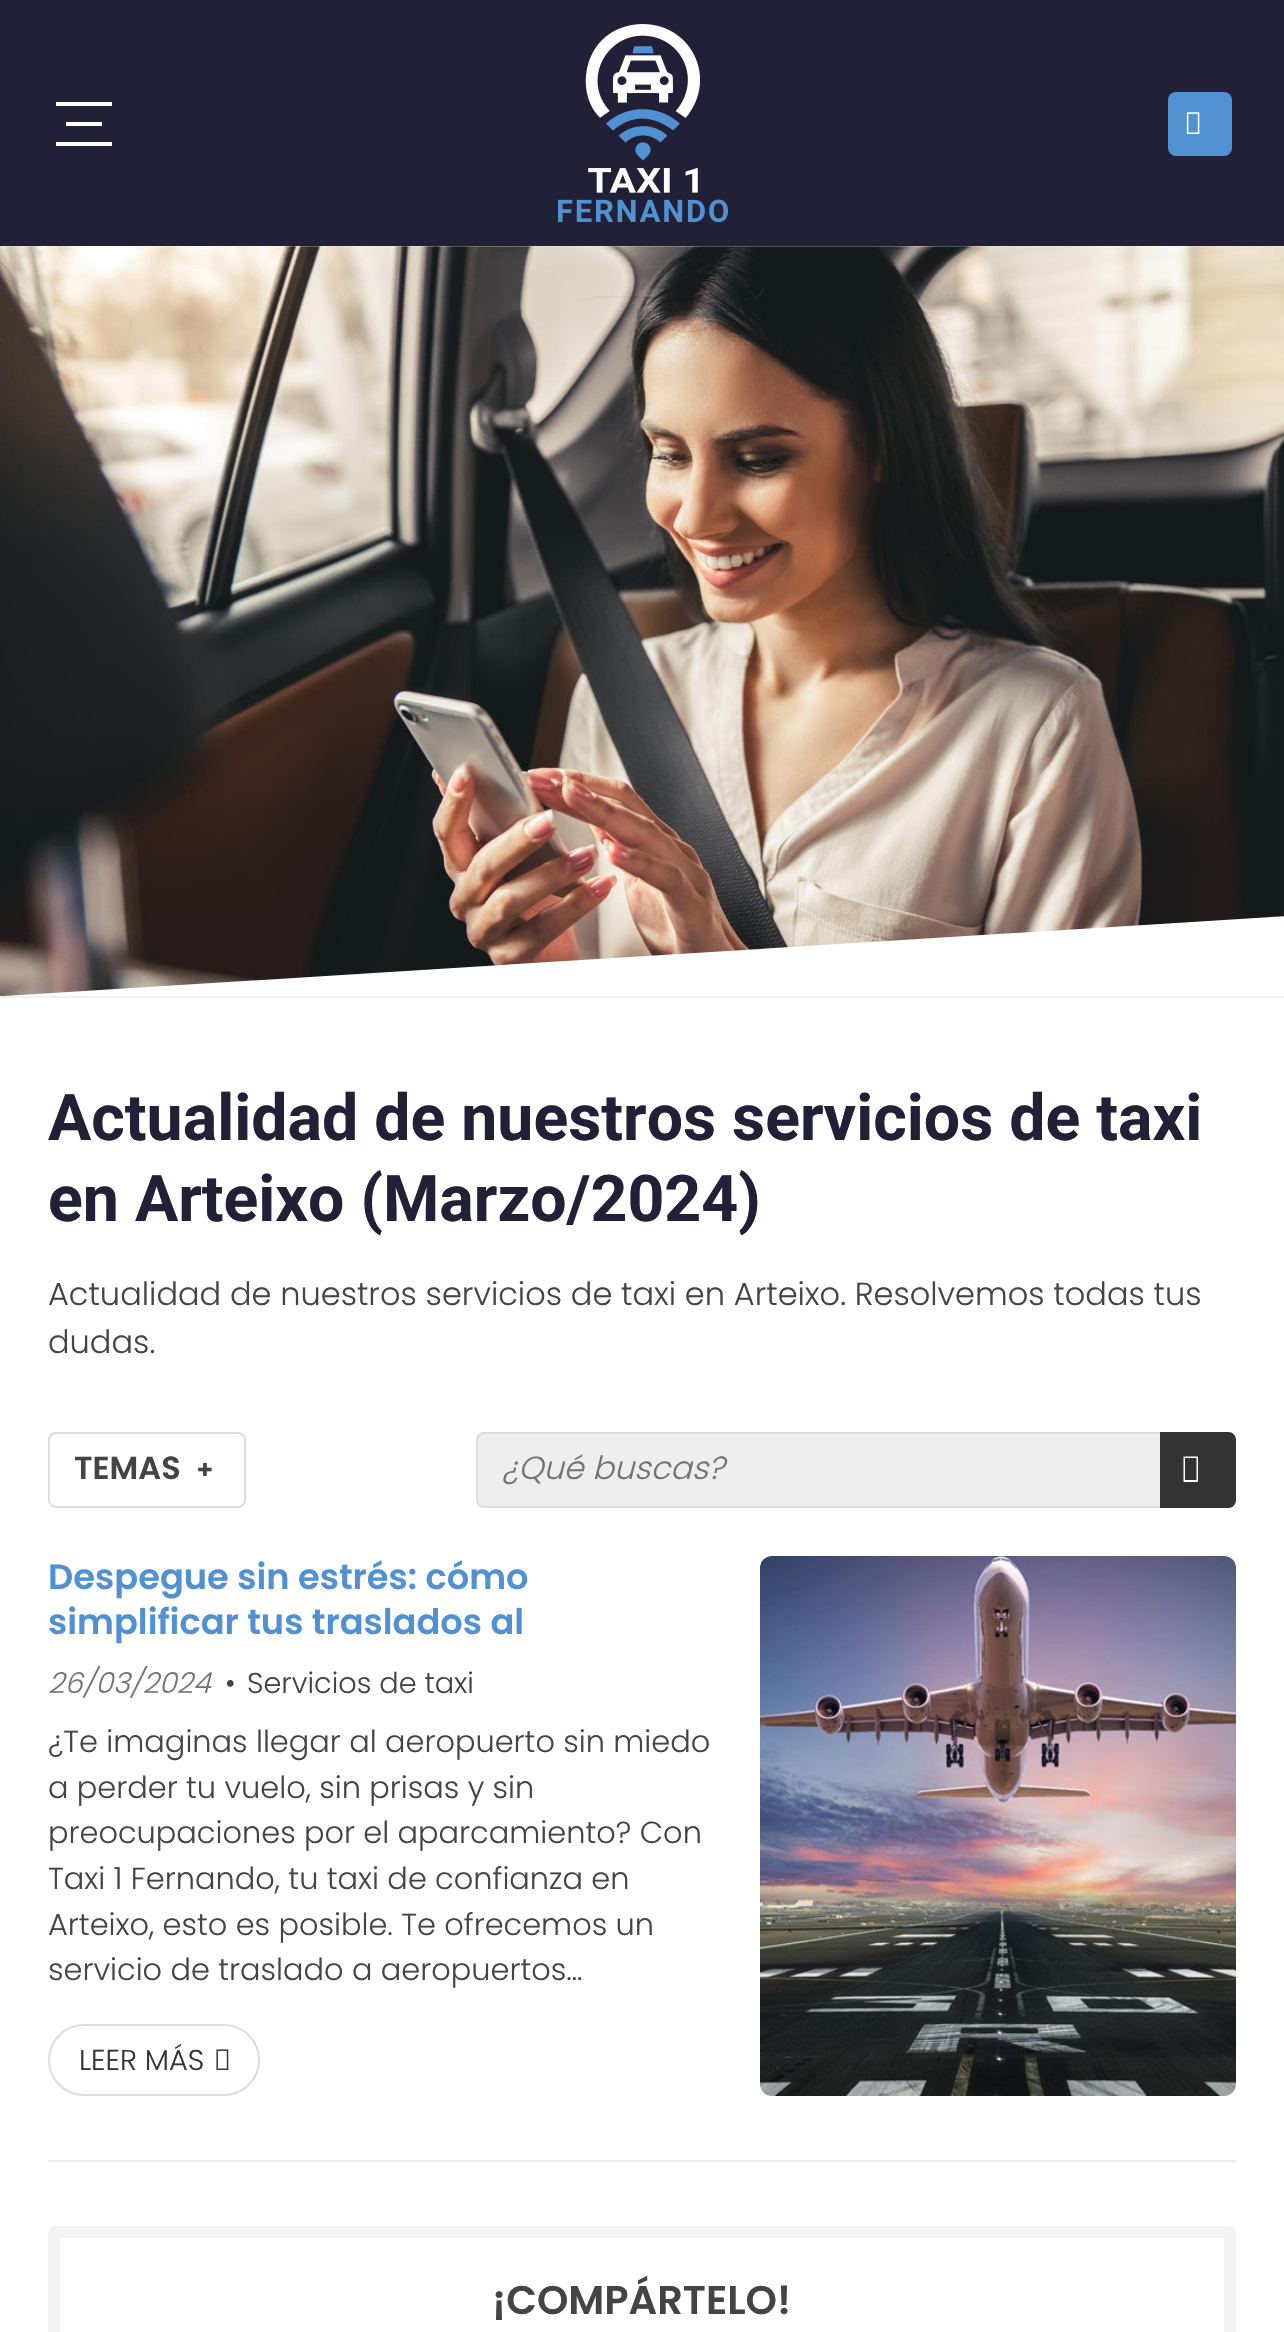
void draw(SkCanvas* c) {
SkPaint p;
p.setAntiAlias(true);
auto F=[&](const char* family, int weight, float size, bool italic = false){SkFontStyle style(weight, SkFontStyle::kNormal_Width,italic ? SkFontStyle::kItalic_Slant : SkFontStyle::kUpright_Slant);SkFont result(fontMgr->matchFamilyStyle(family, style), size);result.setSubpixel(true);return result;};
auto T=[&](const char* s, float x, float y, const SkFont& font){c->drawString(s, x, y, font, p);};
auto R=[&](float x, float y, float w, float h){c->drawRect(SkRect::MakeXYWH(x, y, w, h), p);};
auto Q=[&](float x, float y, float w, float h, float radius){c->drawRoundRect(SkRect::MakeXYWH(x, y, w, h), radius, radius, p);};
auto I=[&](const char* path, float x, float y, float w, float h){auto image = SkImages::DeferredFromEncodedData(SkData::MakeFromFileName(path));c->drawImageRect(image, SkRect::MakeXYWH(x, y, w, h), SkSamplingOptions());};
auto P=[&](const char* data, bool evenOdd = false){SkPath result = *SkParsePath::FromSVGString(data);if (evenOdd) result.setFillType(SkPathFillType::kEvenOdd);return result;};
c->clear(0xffffffff);
p.setColor(0xff222036);
R(0,0,1284,246);
p.setColor(0xffffffff);
R(56,102,56,4);
R(66,122,36,4);
R(56,142,56,4);
I("1.png",558,24,170,198);
p.setColor(0xff5191d1);
Q(1168,92,64,64,8);
I("2.png",1186,112,14,22);
I("3.png",0,246,1284,750);
p.setColor(0xfff2f2f2);
R(0,996,1284,2);
auto f1 = F("Roboto",700,64.4);
p.setColor(0xff222036);
T("Actualidad de nuestros servicios de taxi",48,1140,f1);
T("en Arteixo (Marzo/2024)",48,1221,f1);
auto f2 = F("Poppins",300,32);
p.setColor(0xff444444);
T("Actualidad de nuestros servicios de taxi en Arteixo. Resolvemos todas tus",48,1305,f2);
T("dudas.",48,1353,f2);
p.setStroke(true);
p.setStrokeWidth(2);
p.setColor(0xffdddddd);
c->drawRoundRect(SkRect::MakeXYWH(49,1433,196,74),7,7,p);
auto f3 = F("Poppins",600,32);
p.setStroke(false);
p.setColor(0xff444444);
T("TEMAS",74,1479,f3);
auto f4 = F("Noto Sans",900,27);
T("+",197,1479,f4);
p.setColor(0xffeeeeee);
c->drawRoundRect(SkRect::MakeXYWH(477,1433,758,74),7,7,p);
p.setStroke(true);
p.setColor(0xffdddddd);
c->drawRoundRect(SkRect::MakeXYWH(477,1433,758,74),7,7,p);
auto f5 = F("Poppins",300,32,true);
p.setStroke(false);
p.setColor(0xff737373);
T("¿Qué buscas?",502,1479,f5);
p.setColor(0xff333333);
c->drawPath(P("M1160 1432h68c4.5 0 8 3.5 8 8v60c0 4.5-3.5 8-8 8h-68z"),p);
p.setColor(0xffffffff);
c->drawPath(P("M1183.5 1482v-25.5h14.5v25.5zm1.5-2h11.5v-22h-11.5z"),p);
p.setColor(0xffeeeeee);
R(48,2160,1188,2);
auto f6 = F("Poppins",600,35.25);
p.setColor(0xff5191d1);
T("Despegue sin estrés: cómo",48,1589,f6);
T("simplificar tus traslados al",48,1634,f6);
auto f7 = F("Poppins",300,28.75,true);
p.setColor(0xff737373);
T("26/03/2024",48,1693,f7);
auto f8 = F("Poppins",300,28.75);
p.setColor(0xff444444);
T("•",225,1693,f8);
T("Servicios de taxi",247,1693,f8);
auto f9 = F("Poppins",300,30.4);
T("¿Te imaginas llegar al aeropuerto sin miedo",48,1752,f9);
T("a perder tu vuelo, sin prisas y sin",48,1798,f9);
T("preocupaciones por el aparcamiento? Con",48,1843,f9);
T("Taxi 1 Fernando, tu taxi de confianza en",48,1889,f9);
T("Arteixo, esto es posible. Te ofrecemos un",48,1935,f9);
T("servicio de traslado a aeropuertos…",48,1980,f9);
p.setStroke(true);
p.setColor(0xffdddddd);
c->drawRoundRect(SkRect::MakeXYWH(49,2025,210,70),35,35,p);
p.setStroke(false);
p.setColor(0xff333333);
T("LEER MÁS",79,2070,f8);
I("4.png",216,2049,13,21);
I("5.png",760,1556,476,540);
p.setStroke(true);
p.setStrokeWidth(12);
p.setColor(0xfff2f2f2);
c->drawRoundRect(SkRect::MakeXYWH(54,2232,1176,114),2,2,p);
auto f10 = F("Poppins",600,40);
p.setStroke(false);
p.setColor(0xff444444);
T("¡COMPÁRTELO!",492,2314,f10);
}
